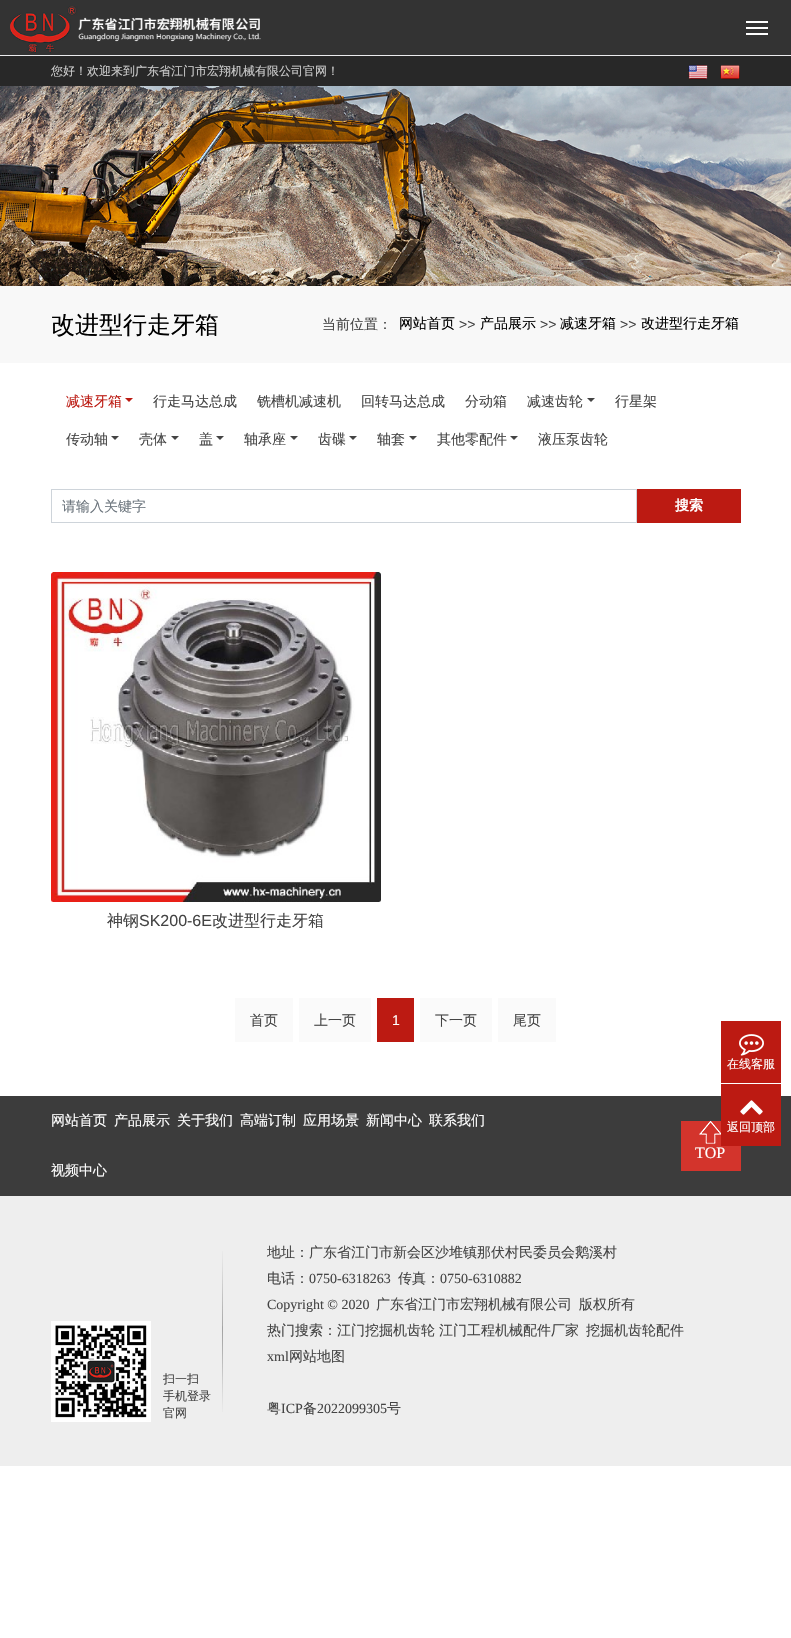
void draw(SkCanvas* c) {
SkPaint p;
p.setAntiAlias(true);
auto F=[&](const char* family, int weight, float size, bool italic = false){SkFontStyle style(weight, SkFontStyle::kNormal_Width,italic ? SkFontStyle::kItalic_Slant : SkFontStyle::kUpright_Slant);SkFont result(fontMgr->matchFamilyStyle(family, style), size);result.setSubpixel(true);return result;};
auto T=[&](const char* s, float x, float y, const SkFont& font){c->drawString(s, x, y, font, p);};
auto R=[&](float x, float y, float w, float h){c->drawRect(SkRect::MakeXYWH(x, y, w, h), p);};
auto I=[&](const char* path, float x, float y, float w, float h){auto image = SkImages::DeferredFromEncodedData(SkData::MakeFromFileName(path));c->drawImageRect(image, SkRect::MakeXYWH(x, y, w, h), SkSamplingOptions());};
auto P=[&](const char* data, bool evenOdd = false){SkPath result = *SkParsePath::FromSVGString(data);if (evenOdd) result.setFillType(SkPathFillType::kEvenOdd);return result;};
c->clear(0xffffffff);
p.setColor(0xff333333);
R(0,0,791,55);
p.setColor(0xffececee);
R(0,55,791,1);
I("1.png",10,6,251,47);
p.setColor(0xffffffff);
R(746,27,22,2);
R(746,21,22,2);
R(746,33,22,2);
p.setColor(0xff282828);
R(0,56,791,30);
auto f1 = F("WenQuanYi Zen Hei",500,12);
p.setColor(0xffcccccc);
T("您好！欢迎来到广东省江门市宏翔机械有限公司官网！",51,75,f1);
I("2.png",688,64,20,16);
I("3.png",720,65,20,15);
I("4.png",0,86,791,200);
p.setColor(0xfff8f8f8);
R(0,286,791,77);
auto f2 = F("WenQuanYi Zen Hei",500,24);
p.setColor(0xff000000);
T("改进型行走牙箱",51,333,f2);
auto f3 = F("WenQuanYi Zen Hei",500,14);
p.setColor(0xff444444);
T("当前位置：",322,329,f3);
p.setColor(0xff000000);
T("网站首页",399,328,f3);
auto f4 = F("Liberation Sans",400,14);
p.setColor(0xff444444);
T(">>",459,329,f4);
p.setColor(0xff000000);
T("产品展示",480,328,f3);
p.setColor(0xff444444);
T(">>",540,329,f4);
p.setColor(0xff000000);
T("减速牙箱",560,328,f3);
p.setColor(0xff444444);
T(">>",620,329,f4);
p.setColor(0xff000000);
T("改进型行走牙箱",641,328,f3);
p.setColor(0xffbc1a12);
T("减速牙箱",66,406,f3);
c->drawPath(P("M125 398h8l-4 4z"),p);
p.setColor(0xff444444);
T("行走马达总成",153,406,f3);
T("铣槽机减速机",257,406,f3);
T("回转马达总成",361,406,f3);
T("分动箱",465,406,f3);
T("减速齿轮",527,406,f3);
c->drawPath(P("M587 398h8l-4 4z"),p);
T("行星架",615,406,f3);
T("传动轴",66,444,f3);
c->drawPath(P("M111 436h8l-4 4z"),p);
T("壳体",139,444,f3);
c->drawPath(P("M171 436h8l-4 4z"),p);
T("盖",199,444,f3);
c->drawPath(P("M216 436h8l-4 4z"),p);
T("轴承座",244,444,f3);
c->drawPath(P("M290 436h8l-4 4z"),p);
T("齿碟",318,444,f3);
c->drawPath(P("M349 436h8l-4 4z"),p);
T("轴套",377,444,f3);
c->drawPath(P("M409 436h8l-4 4z"),p);
T("其他零配件",437,444,f3);
c->drawPath(P("M510 436h8l-4 4z"),p);
T("液压泵齿轮",538,444,f3);
p.setStroke(true);
p.setStrokeWidth(1);
p.setColor(0xffced4da);
c->drawRect(SkRect::MakeXYWH(51.5,489.5,585,33),p);
p.setStroke(false);
p.setColor(0xff6c757d);
T("请输入关键字",62,511,f3);
p.setColor(0xffbc1a12);
R(637,489,104,34);
auto f5 = F("WenQuanYi Zen Hei",700,14);
p.setColor(0xffffffff);
T("搜索",675,510,f5);
I("5.png",51,572,330,330);
auto f6 = F("WenQuanYi Zen Hei",500,16);
p.setColor(0xff444444);
T("神钢",107,926,f6);
auto f7 = F("Liberation Sans",400,16);
T("SK200-6E",139,926,f7);
T("改进型行走牙箱",212,926,f6);
p.setColor(0xfffafafa);
R(235,998,58,44);
p.setColor(0xff444444);
T("首页",250,1025,f3);
p.setColor(0xfffafafa);
R(299,998,72,44);
p.setColor(0xff444444);
T("上一页",314,1025,f3);
p.setColor(0xffbc1a12);
R(377,998,37,44);
p.setColor(0xffffffff);
T("1",392,1025,f4);
p.setColor(0xfffafafa);
R(420,998,72,44);
p.setColor(0xff444444);
T("下一页",435,1025,f3);
p.setColor(0xfffafafa);
R(498,998,58,44);
p.setColor(0xff444444);
T("尾页",513,1025,f3);
p.setColor(0xffeeeeee);
R(0,1196,791,270);
p.setColor(0xffbc1a12);
R(721,1021,60,62);
I("6.png",739,1034,25,22);
p.setColor(0xffffffff);
T("在线客服",727,1068,f1);
p.setColor(0xff3c3c3c);
R(0,1096,791,100);
p.setColor(0xffd3342c);
R(681,1121,60,50);
p.setColor(0xffbc1a12);
R(721,1084,60,62);
I("7.png",740,1100,23,15);
p.setColor(0xffffffff);
T("返回顶部",727,1131,f1);
T("网站首页",51,1125,f3);
T("产品展示",114,1125,f3);
T("关于我们",177,1125,f3);
T("高端订制",240,1125,f3);
T("应用场景",303,1125,f3);
T("新闻中心",366,1125,f3);
T("联系我们",429,1125,f3);
T("视频中心",51,1175,f3);
I("8.png",699,1121,22,23);
auto f8 = F("Liberation Serif",400,16);
T("TOP",695,1158,f8);
I("9.png",222,1251,1,161);
I("10.png",51,1321,100,101);
p.setColor(0xff444444);
T("扫一扫",163,1383,f1);
T("手机登录",163,1400,f1);
T("官网",163,1417,f1);
T("地址：广东省江门市新会区沙堆镇那伏村民委员会鹅溪村",267,1257,f3);
T("电话：",267,1283,f3);
auto f9 = F("Liberation Serif",400,14);
T("0750-6318263",309,1283,f9);
T("传真：",398,1283,f3);
T("0750-6310882",440,1283,f9);
T("Copyright © 2020",267,1309,f9);
T("广东省江门市宏翔机械有限公司",376,1309,f3);
T("版权所有",579,1309,f3);
T("热门搜索：江门挖掘机齿轮",267,1335,f3);
T("江门工程机械配件厂家",439,1335,f3);
T("挖掘机齿轮配件",586,1335,f3);
T("xml",267,1361,f9);
T("网站地图",289,1361,f3);
T("粤",267,1413,f3);
T("ICP",281,1413,f9);
T("备",303,1413,f3);
T("2022099305",317,1413,f9);
T("号",387,1413,f3);
}
